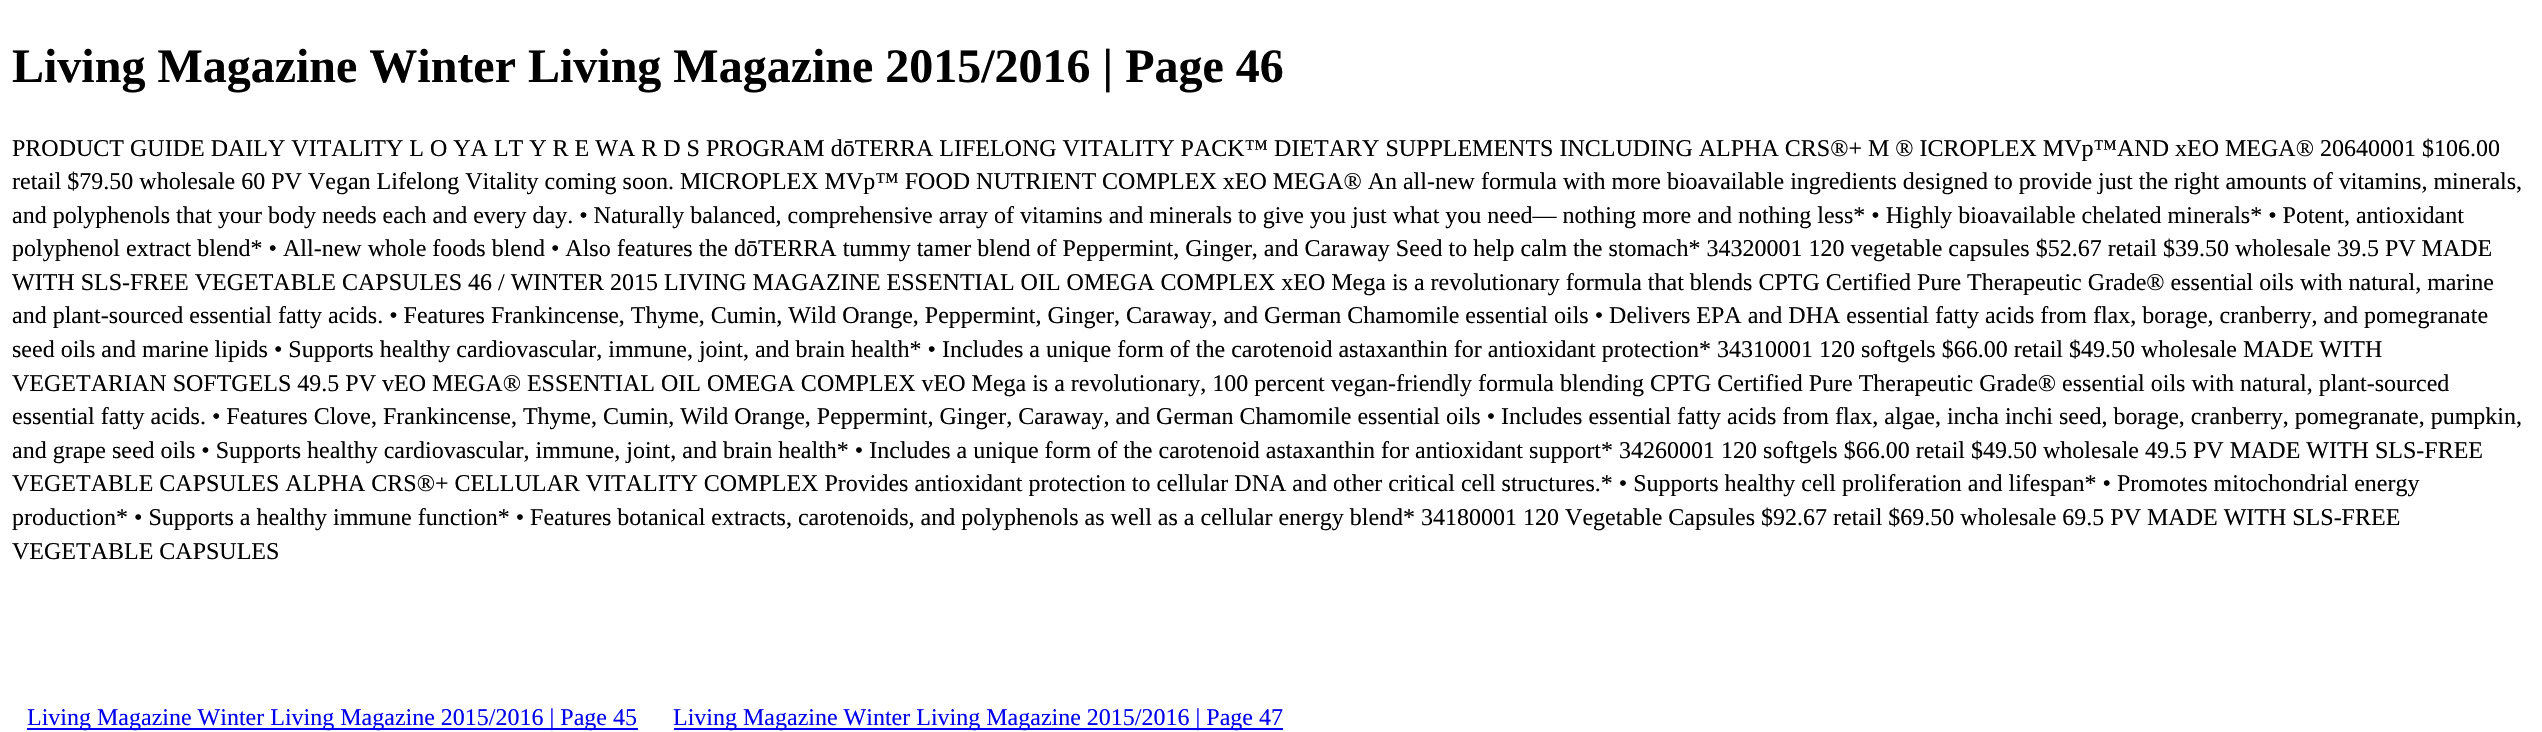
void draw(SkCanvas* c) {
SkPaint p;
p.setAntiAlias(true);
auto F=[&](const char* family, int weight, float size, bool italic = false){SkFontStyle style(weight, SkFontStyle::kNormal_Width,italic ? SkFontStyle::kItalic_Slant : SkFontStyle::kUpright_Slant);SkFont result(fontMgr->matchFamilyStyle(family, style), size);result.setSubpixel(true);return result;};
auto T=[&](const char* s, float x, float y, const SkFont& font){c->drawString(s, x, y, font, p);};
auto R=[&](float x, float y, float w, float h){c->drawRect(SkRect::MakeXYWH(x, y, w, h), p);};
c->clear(0xffffffff);
auto f1 = F("Liberation Serif",700,48);
p.setColor(0xff000000);
T("Living Magazine Winter Living Magazine 2015/2016 | Page 46",12,82,f1);
auto f2 = F("Liberation Serif",400,24);
T("PRODUCT GUIDE DAILY VITALITY L O YA LT Y R E WA R D S PROGRAM dōTERRA LIFELONG VITALITY PACK™ DIETARY SUPPLEMENTS INCLUDING ALPHA CRS®+ M ® ICROPLEX MVp™AND xEO MEGA® 20640001 $106.00",12,156,f2);
T("retail $79.50 wholesale 60 PV Vegan Lifelong Vitality coming soon. MICROPLEX MVp™ FOOD NUTRIENT COMPLEX xEO MEGA® An all-new formula with more bioavailable ingredients designed to provide just the right amounts of vitamins, minerals,",12,189,f2);
T("and polyphenols that your body needs each and every day. • Naturally balanced, comprehensive array of vitamins and minerals to give you just what you need— nothing more and nothing less* • Highly bioavailable chelated minerals* • Potent, antioxidant",12,223,f2);
T("polyphenol extract blend* • All-new whole foods blend • Also features the dōTERRA tummy tamer blend of Peppermint, Ginger, and Caraway Seed to help calm the stomach* 34320001 120 vegetable capsules $52.67 retail $39.50 wholesale 39.5 PV MADE",12,256,f2);
T("WITH SLS-FREE VEGETABLE CAPSULES 46 / WINTER 2015 LIVING MAGAZINE ESSENTIAL OIL OMEGA COMPLEX xEO Mega is a revolutionary formula that blends CPTG Certified Pure Therapeutic Grade® essential oils with natural, marine",12,290,f2);
T("and plant-sourced essential fatty acids. • Features Frankincense, Thyme, Cumin, Wild Orange, Peppermint, Ginger, Caraway, and German Chamomile essential oils • Delivers EPA and DHA essential fatty acids from flax, borage, cranberry, and pomegranate",12,323,f2);
T("seed oils and marine lipids • Supports healthy cardiovascular, immune, joint, and brain health* • Includes a unique form of the carotenoid astaxanthin for antioxidant protection* 34310001 120 softgels $66.00 retail $49.50 wholesale MADE WITH",12,357,f2);
T("VEGETARIAN SOFTGELS 49.5 PV vEO MEGA® ESSENTIAL OIL OMEGA COMPLEX vEO Mega is a revolutionary, 100 percent vegan-friendly formula blending CPTG Certified Pure Therapeutic Grade® essential oils with natural, plant-sourced",12,391,f2);
T("essential fatty acids. • Features Clove, Frankincense, Thyme, Cumin, Wild Orange, Peppermint, Ginger, Caraway, and German Chamomile essential oils • Includes essential fatty acids from flax, algae, incha inchi seed, borage, cranberry, pomegranate, pumpkin,",12,424,f2);
T("and grape seed oils • Supports healthy cardiovascular, immune, joint, and brain health* • Includes a unique form of the carotenoid astaxanthin for antioxidant support* 34260001 120 softgels $66.00 retail $49.50 wholesale 49.5 PV MADE WITH SLS-FREE",12,458,f2);
T("VEGETABLE CAPSULES ALPHA CRS®+ CELLULAR VITALITY COMPLEX Provides antioxidant protection to cellular DNA and other critical cell structures.* • Supports healthy cell proliferation and lifespan* • Promotes mitochondrial energy",12,491,f2);
T("production* • Supports a healthy immune function* • Features botanical extracts, carotenoids, and polyphenols as well as a cellular energy blend* 34180001 120 Vegetable Capsules $92.67 retail $69.50 wholesale 69.5 PV MADE WITH SLS-FREE",12,525,f2);
T("VEGETABLE CAPSULES",12,559,f2);
p.setColor(0xff0000ee);
R(27,728,611,2);
T("Living Magazine Winter Living Magazine 2015/2016 | Page 45",27,725,f2);
R(674,728,609,2);
T("Living Magazine Winter Living Magazine 2015/2016 | Page 47",673,725,f2);
}
